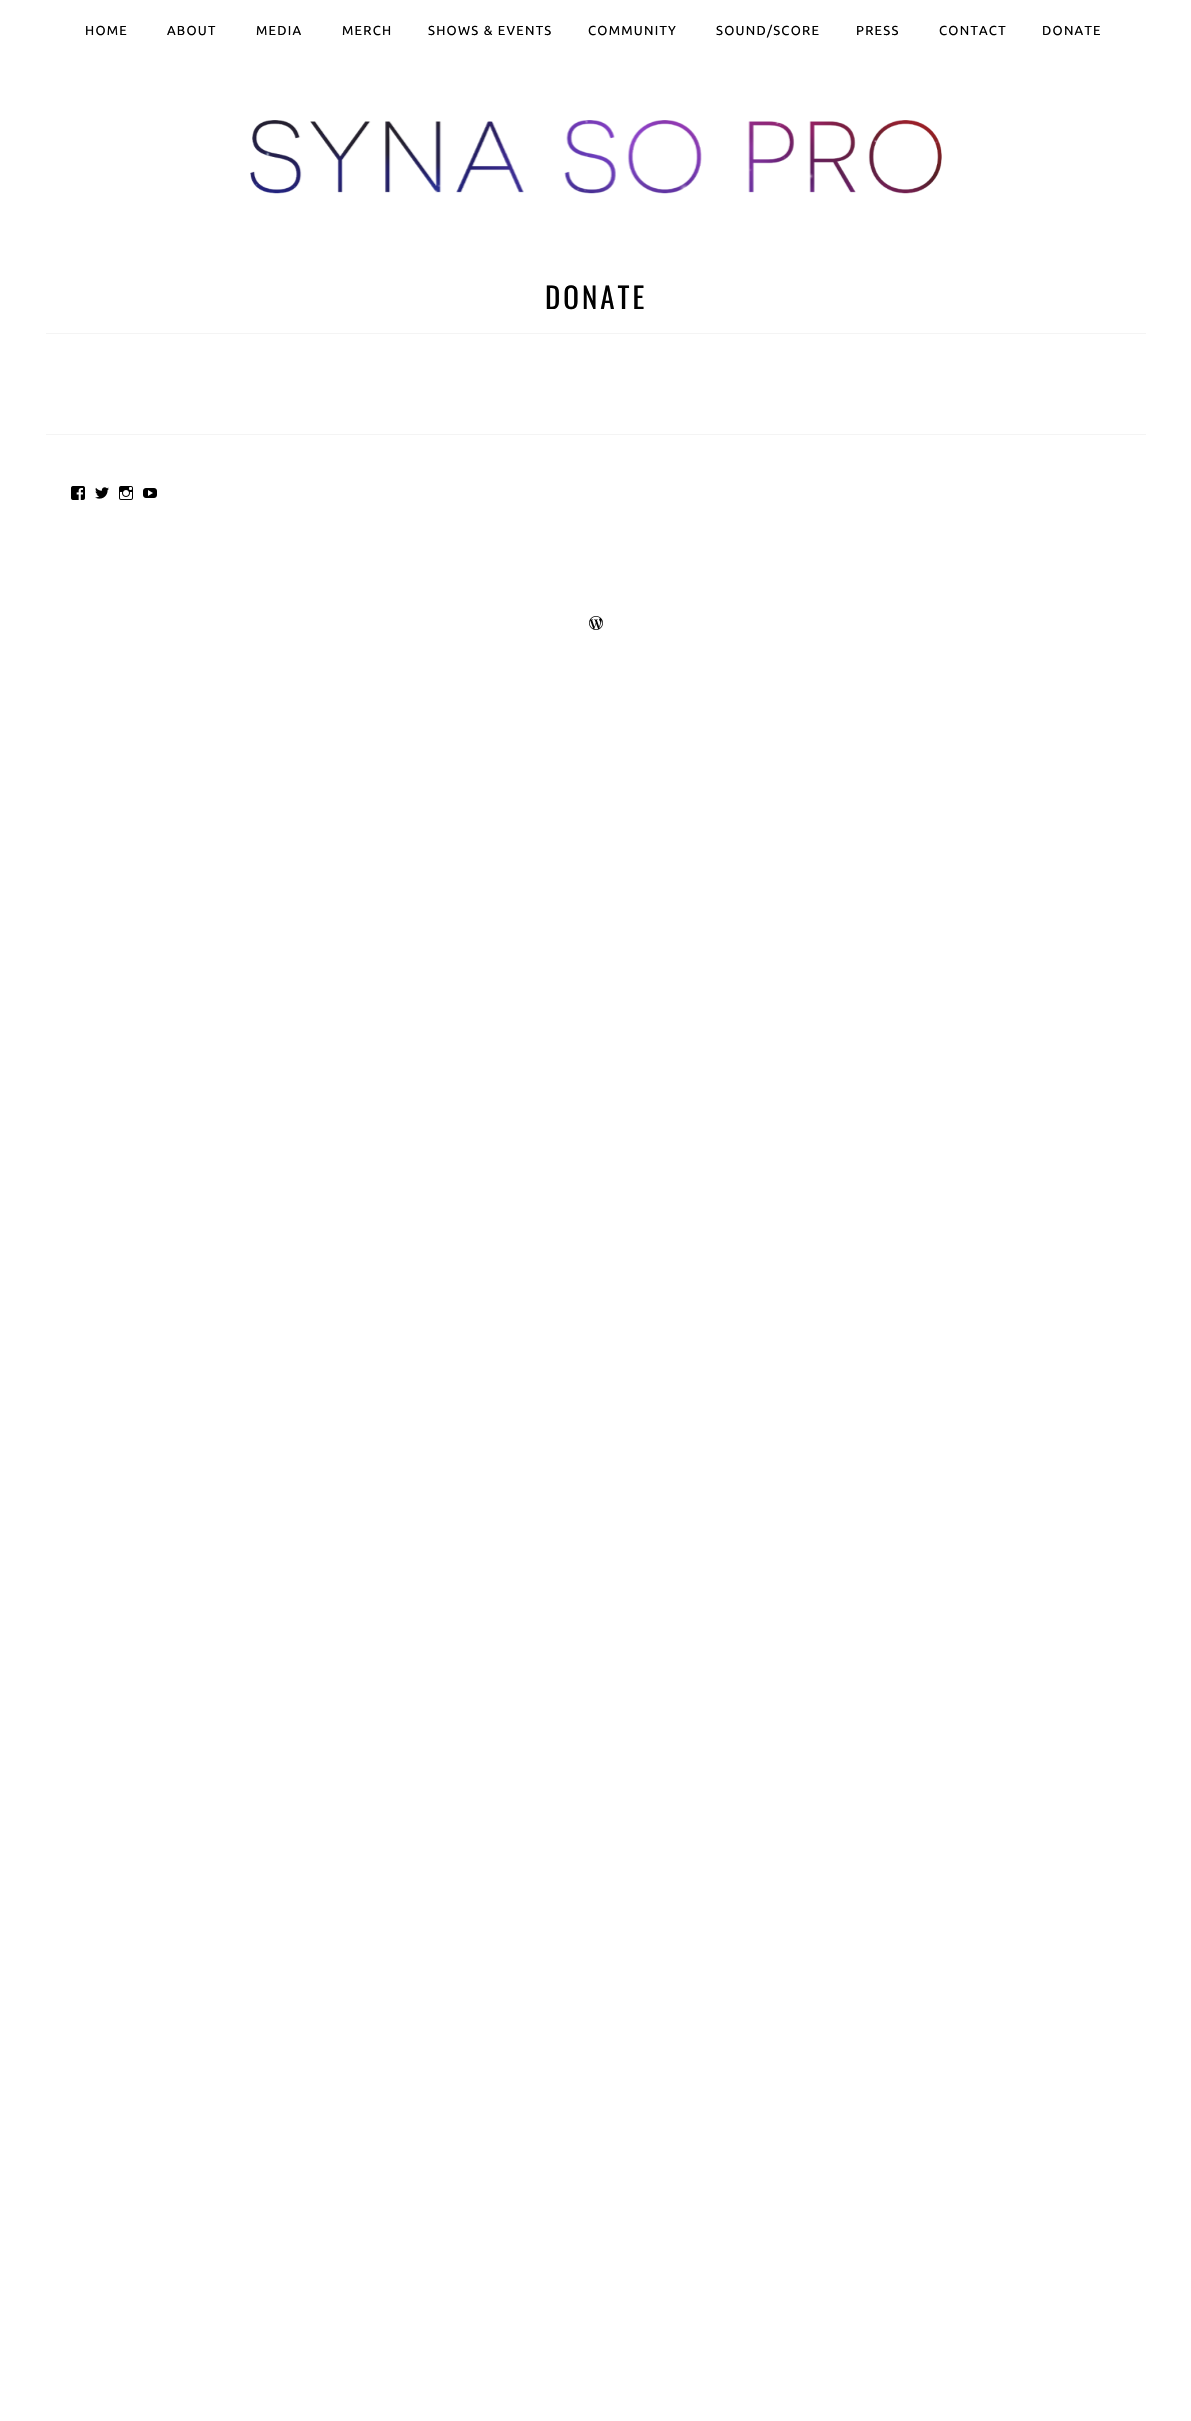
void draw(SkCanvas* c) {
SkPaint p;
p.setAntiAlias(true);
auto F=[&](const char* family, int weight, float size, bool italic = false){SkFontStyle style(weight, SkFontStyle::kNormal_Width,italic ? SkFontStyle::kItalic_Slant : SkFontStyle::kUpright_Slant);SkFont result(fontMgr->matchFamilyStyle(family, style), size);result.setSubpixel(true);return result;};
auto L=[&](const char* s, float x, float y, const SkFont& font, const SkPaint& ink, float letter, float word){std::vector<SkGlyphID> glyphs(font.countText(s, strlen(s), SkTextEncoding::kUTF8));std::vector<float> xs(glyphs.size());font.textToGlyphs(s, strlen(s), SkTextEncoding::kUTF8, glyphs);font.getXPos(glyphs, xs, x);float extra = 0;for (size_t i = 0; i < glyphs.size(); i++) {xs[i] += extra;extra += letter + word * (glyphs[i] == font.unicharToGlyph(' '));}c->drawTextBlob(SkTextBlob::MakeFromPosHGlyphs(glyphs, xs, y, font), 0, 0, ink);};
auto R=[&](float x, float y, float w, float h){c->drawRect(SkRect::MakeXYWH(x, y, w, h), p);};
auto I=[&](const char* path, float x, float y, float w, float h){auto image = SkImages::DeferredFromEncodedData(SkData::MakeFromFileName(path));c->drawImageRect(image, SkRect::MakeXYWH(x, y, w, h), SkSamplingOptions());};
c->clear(0xffffffff);
auto f1 = F("Ubuntu",400,13);
p.setColor(0xff000000);
L("HOME",85,35,f1,p,1.25,0);
L("ABOUT",167,35,f1,p,1.25,0);
L("MEDIA",256,35,f1,p,1.25,0);
L("MERCH",342,35,f1,p,1.25,0);
L("SHOWS & EVENTS",428,35,f1,p,1.25,0);
L("COMMUNITY",588,35,f1,p,1.25,0);
L("SOUND/SCORE",716,35,f1,p,1.25,0);
L("PRESS",856,35,f1,p,1.25,0);
L("CONTACT",939,35,f1,p,1.25,0);
L("DONATE",1042,35,f1,p,1.25,0);
I("1.png",250,120,692,74);
p.setColor(0xfff4f4f4);
R(46,333,1100,1);
auto f2 = F("Oswald",400,29);
p.setColor(0xff000000);
L("DONATE",545,309,f2,p,3,0);
p.setColor(0xfff4f4f4);
R(46,434,1100,1);
I("2.png",71,486,14,14);
I("3.png",95,487,14,12);
I("4.png",119,486,14,14);
I("5.png",143,488,14,10);
I("6.png",589,616,14,14);
}
